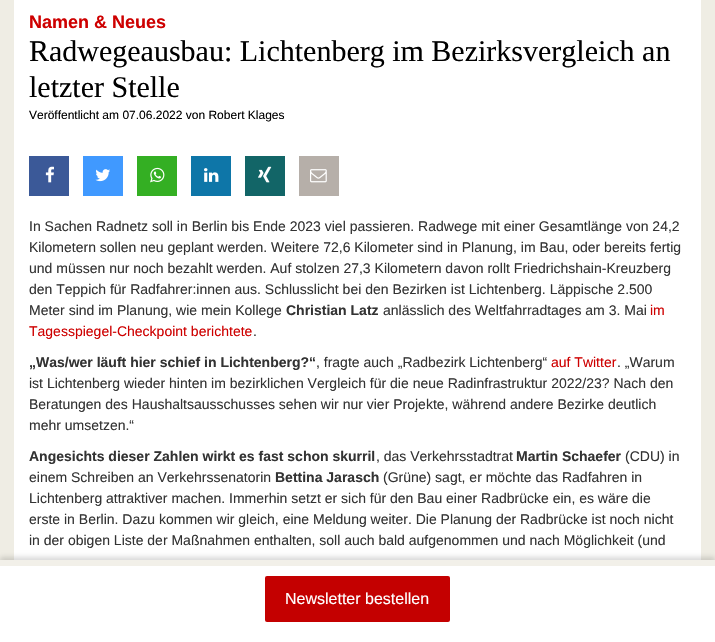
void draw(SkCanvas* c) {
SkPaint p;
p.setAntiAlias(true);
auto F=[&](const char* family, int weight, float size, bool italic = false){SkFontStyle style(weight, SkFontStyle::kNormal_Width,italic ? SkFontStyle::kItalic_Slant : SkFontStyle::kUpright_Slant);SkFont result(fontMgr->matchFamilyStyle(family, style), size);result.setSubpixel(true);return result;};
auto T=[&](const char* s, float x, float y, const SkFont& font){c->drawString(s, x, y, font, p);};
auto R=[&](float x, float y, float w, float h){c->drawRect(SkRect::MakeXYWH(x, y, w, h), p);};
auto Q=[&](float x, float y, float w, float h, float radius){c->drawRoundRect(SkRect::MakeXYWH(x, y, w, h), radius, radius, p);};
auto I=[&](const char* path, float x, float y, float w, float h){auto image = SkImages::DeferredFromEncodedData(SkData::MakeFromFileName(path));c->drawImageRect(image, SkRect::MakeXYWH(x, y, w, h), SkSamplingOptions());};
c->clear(0xffefede4);
p.setColor(0xffffffff);
R(14,0,687,560);
auto f1 = F("Liberation Sans",700,18);
p.setColor(0xffce0000);
T("Namen & Neues",29,28,f1);
auto f2 = F("Liberation Serif",400,30);
p.setColor(0xff000000);
T("Radwegeausbau: Lichtenberg im Bezirksvergleich an",29,61,f2);
T("letzter Stelle",29,97,f2);
auto f3 = F("Liberation Sans",400,12);
T("Veröffentlicht am 07.06.2022 von Robert Klages",29,119,f3);
p.setColor(0xff3b5998);
R(29,156,40,40);
I("1.png",45,166,9,17);
p.setColor(0xff4099ff);
R(83,156,40,40);
I("2.png",95,169,15,13);
p.setColor(0xff34af23);
R(137,156,40,40);
I("3.png",150,167,15,16);
p.setColor(0xff0e76a8);
R(191,156,40,40);
I("4.png",204,168,15,14);
p.setColor(0xff126567);
R(245,156,40,40);
I("5.png",258,166,14,17);
p.setColor(0xffb6afa9);
R(299,156,40,40);
I("6.png",310,169,17,14);
auto f4 = F("Liberation Sans",400,14);
p.setColor(0xff333333);
T("In Sachen Radnetz soll in Berlin bis Ende 2023 viel passieren. Radwege mit einer Gesamtlänge von 24,2",29,231,f4);
T("Kilometern sollen neu geplant werden. Weitere 72,6 Kilometer sind in Planung, im Bau, oder bereits fertig",29,252,f4);
T("und müssen nur noch bezahlt werden. Auf stolzen 27,3 Kilometern davon rollt Friedrichshain-Kreuzberg",29,273,f4);
T("den Teppich für Radfahrer:innen aus. Schlusslicht bei den Bezirken ist Lichtenberg. Läppische 2.500",29,294,f4);
T("Meter sind im Planung, wie mein Kollege",29,315,f4);
auto f5 = F("Liberation Sans",700,14);
T("Christian Latz",286,315,f5);
T("anlässlich des Weltfahrradtages am 3. Mai",383,315,f4);
p.setColor(0xffce0000);
T("im",650,315,f4);
T("Tagesspiegel-Checkpoint berichtete",29,336,f4);
p.setColor(0xff333333);
T(".",253,336,f4);
T("„Was/wer läuft hier schief in Lichtenberg?“",29,367,f5);
T(", fragte auch „Radbezirk Lichtenberg“",316,367,f4);
p.setColor(0xffce0000);
T("auf Twitter",551,367,f4);
p.setColor(0xff333333);
T(". „Warum",617,367,f4);
T("ist Lichtenberg wieder hinten im bezirklichen Vergleich für die neue Radinfrastruktur 2022/23? Nach den",29,388,f4);
T("Beratungen des Haushaltsausschusses sehen wir nur vier Projekte, während andere Bezirke deutlich",29,409,f4);
T("mehr umsetzen.“",29,430,f4);
T("Angesichts dieser Zahlen wirkt es fast schon skurril",29,461,f5);
T(", das Verkehrsstadtrat",376,461,f4);
T("Martin Schaefer",516,461,f5);
T("(CDU) in",625,461,f4);
T("einem Schreiben an Verkehrssenatorin",29,482,f4);
T("Bettina Jarasch",275,482,f5);
T("(Grüne) sagt, er möchte das Radfahren in",383,482,f4);
T("Lichtenberg attraktiver machen. Immerhin setzt er sich für den Bau einer Radbrücke ein, es wäre die",29,503,f4);
T("erste in Berlin. Dazu kommen wir gleich, eine Meldung weiter. Die Planung der Radbrücke ist noch nicht",29,524,f4);
T("in der obigen Liste der Maßnahmen enthalten, soll auch bald aufgenommen und nach Möglichkeit (und",29,545,f4);
p.setColor(0x26000000);
p.setMaskFilter(SkMaskFilter::MakeBlur(kNormal_SkBlurStyle, 2.5));
c->drawRect(SkRect::MakeXYWH(0,557,715,82),p);
p.setMaskFilter(nullptr);
p.setColor(0xffffffff);
R(0,566,715,76);
p.setColor(0xfff2f0e9);
R(0,560,715,6);
p.setColor(0xffc40000);
Q(265,576,185,46,2);
auto f6 = F("Liberation Sans",400,16);
p.setColor(0xffffffff);
T("Newsletter bestellen",285,604,f6);
}
